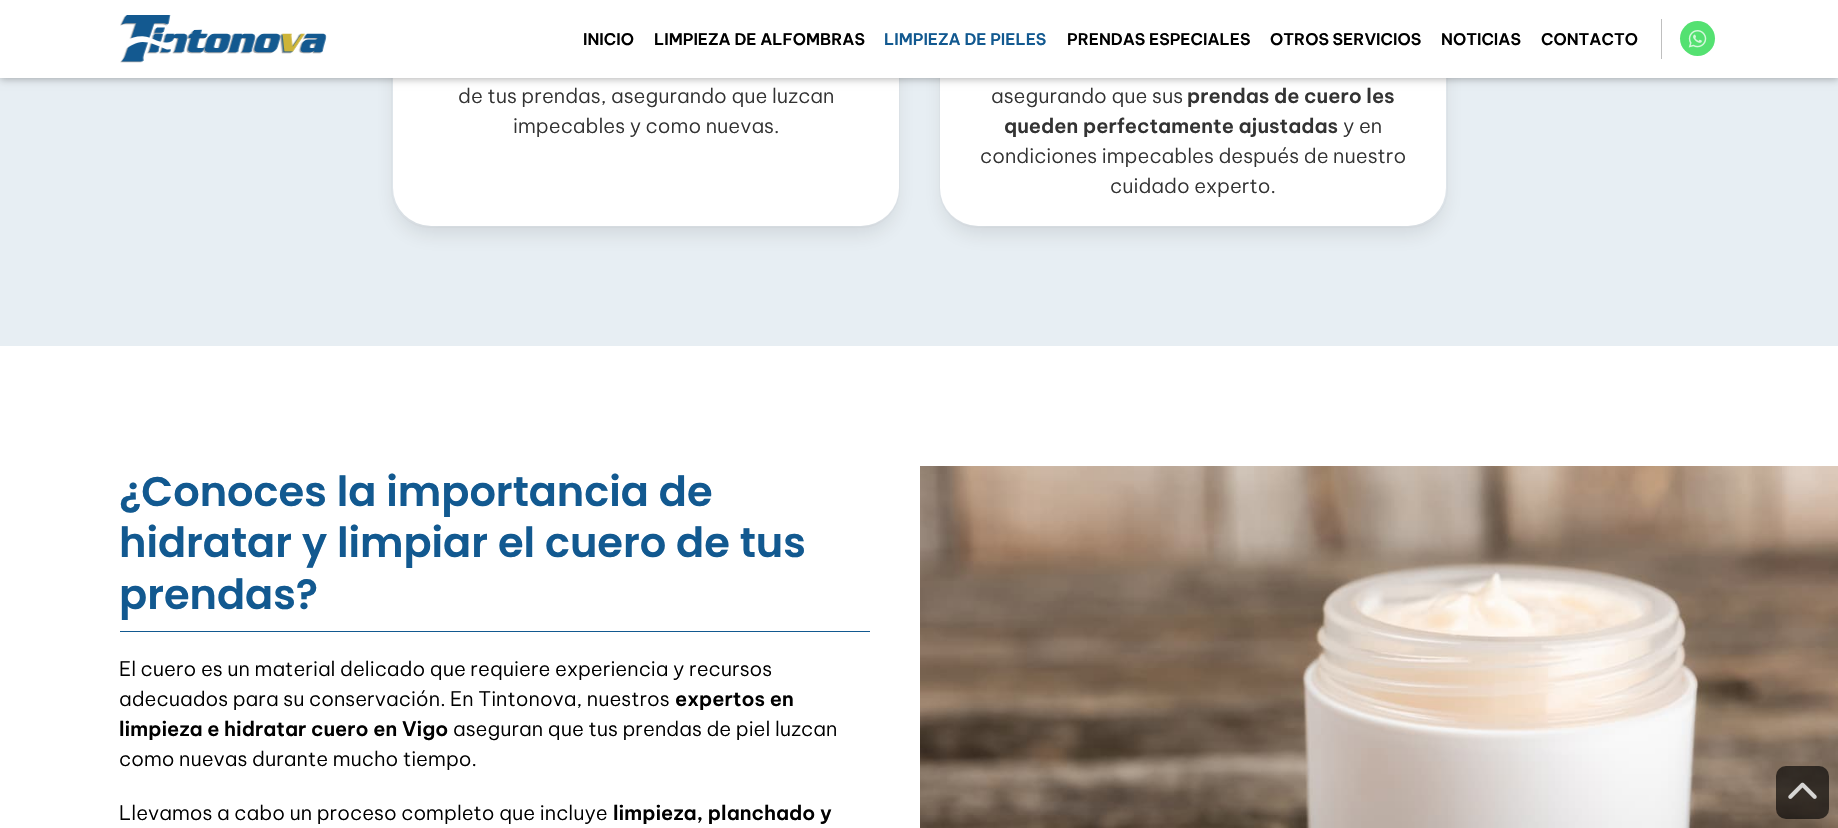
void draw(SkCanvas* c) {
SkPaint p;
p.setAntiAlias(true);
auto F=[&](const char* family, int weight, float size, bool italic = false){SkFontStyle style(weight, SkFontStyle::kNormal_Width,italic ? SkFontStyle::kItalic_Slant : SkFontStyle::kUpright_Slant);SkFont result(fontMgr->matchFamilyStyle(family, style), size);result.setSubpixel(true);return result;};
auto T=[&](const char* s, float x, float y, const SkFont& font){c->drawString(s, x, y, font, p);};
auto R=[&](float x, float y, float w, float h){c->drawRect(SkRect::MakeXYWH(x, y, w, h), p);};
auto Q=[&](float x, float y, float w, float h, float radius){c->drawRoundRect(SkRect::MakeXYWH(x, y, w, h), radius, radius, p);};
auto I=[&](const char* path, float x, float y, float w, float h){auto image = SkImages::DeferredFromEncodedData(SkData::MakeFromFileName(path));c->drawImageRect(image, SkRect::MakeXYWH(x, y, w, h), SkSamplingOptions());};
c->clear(0xffffffff);
p.setColor(0xffe7eef3);
R(0,78,1838,268);
p.setStroke(true);
p.setStrokeWidth(1);
p.setColor(0xffe3e9ee);
c->drawRoundRect(SkRect::MakeXYWH(391.5,-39.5,508,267),38.5,38.5,p);
p.setStroke(false);
p.setColor(0x1a0a0a0a);
p.setMaskFilter(SkMaskFilter::MakeBlur(kNormal_SkBlurStyle, 10));
c->drawRoundRect(SkRect::MakeXYWH(395,-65,501,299),35,35,p);
p.setMaskFilter(nullptr);
p.setColor(0xffffffff);
Q(393,-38,506,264,38);
p.setStroke(true);
p.setColor(0xffe3e9ee);
c->drawRoundRect(SkRect::MakeXYWH(939.5,-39.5,508,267),38.5,38.5,p);
p.setStroke(false);
p.setColor(0x1a0a0a0a);
p.setMaskFilter(SkMaskFilter::MakeBlur(kNormal_SkBlurStyle, 10));
c->drawRoundRect(SkRect::MakeXYWH(943,-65,501,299),35,35,p);
p.setMaskFilter(nullptr);
p.setColor(0xffffffff);
Q(940,-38,506,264,38);
p.setColor(0x4d000000);
p.setMaskFilter(SkMaskFilter::MakeBlur(kNormal_SkBlurStyle, 4));
c->drawRect(SkRect::MakeXYWH(0,1,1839,78),p);
p.setMaskFilter(nullptr);
p.setColor(0xffffffff);
R(0,0,1838,78);
I("1.png",120,15,207,48);
auto f1 = F("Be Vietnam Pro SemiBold",600,16);
p.setColor(0xff000000);
T("INICIO",583,45,f1);
T("LIMPIEZA DE ALFOMBRAS",654,45,f1);
p.setColor(0xff125990);
T("LIMPIEZA DE PIELES",884,45,f1);
p.setColor(0xff000000);
T("PRENDAS ESPECIALES",1067,45,f1);
T("OTROS SERVICIOS",1270,45,f1);
T("NOTICIAS",1441,45,f1);
T("CONTACTO",1541,45,f1);
p.setColor(0xffbfbfbf);
R(1661,19,1,40);
p.setColor(0xff54e171);
c->drawCircle(1697.5,38.5,17.5,p);
I("2.png",1688,30,19,18);
auto f2 = F("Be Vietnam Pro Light",300,20);
p.setColor(0xff333333);
T("de tus prendas, asegurando que luzcan",458,103,f2);
T("impecables y como nuevas.",513,133,f2);
T("asegurando que sus",991,103,f2);
auto f3 = F("Be Vietnam Pro SemiBold",600,20);
T("prendas de cuero les",1187,103,f3);
T("queden perfectamente ajustadas",1004,133,f3);
T("y en",1343,133,f2);
T("condiciones impecables después de nuestro",980,163,f2);
T("cuidado experto.",1110,193,f2);
p.setColor(0xff125990);
R(120,631,750,1);
auto f4 = F("Poppins",600,41.5);
T("¿Conoces la importancia de",119,506,f4);
T("hidratar y limpiar el cuero de tus",119,557,f4);
T("prendas?",119,609,f4);
p.setColor(0xff000000);
T("El cuero es un material delicado que requiere experiencia y recursos",119,676,f2);
T("adecuados para su conservación. En Tintonova, nuestros",119,706,f2);
T("expertos en",675,706,f3);
T("limpieza e hidratar cuero en Vigo",119,736,f3);
T("aseguran que tus prendas de piel luzcan",453,736,f2);
T("como nuevas durante mucho tiempo.",119,766,f2);
T("Llevamos a cabo un proceso completo que incluye",119,820,f2);
T("limpieza, planchado y",613,820,f3);
I("3.png",920,466,918,362);
p.setColor(0xa3000000);
Q(1776,766,53,53,10);
I("4.png",1788,782,29,17);
}
